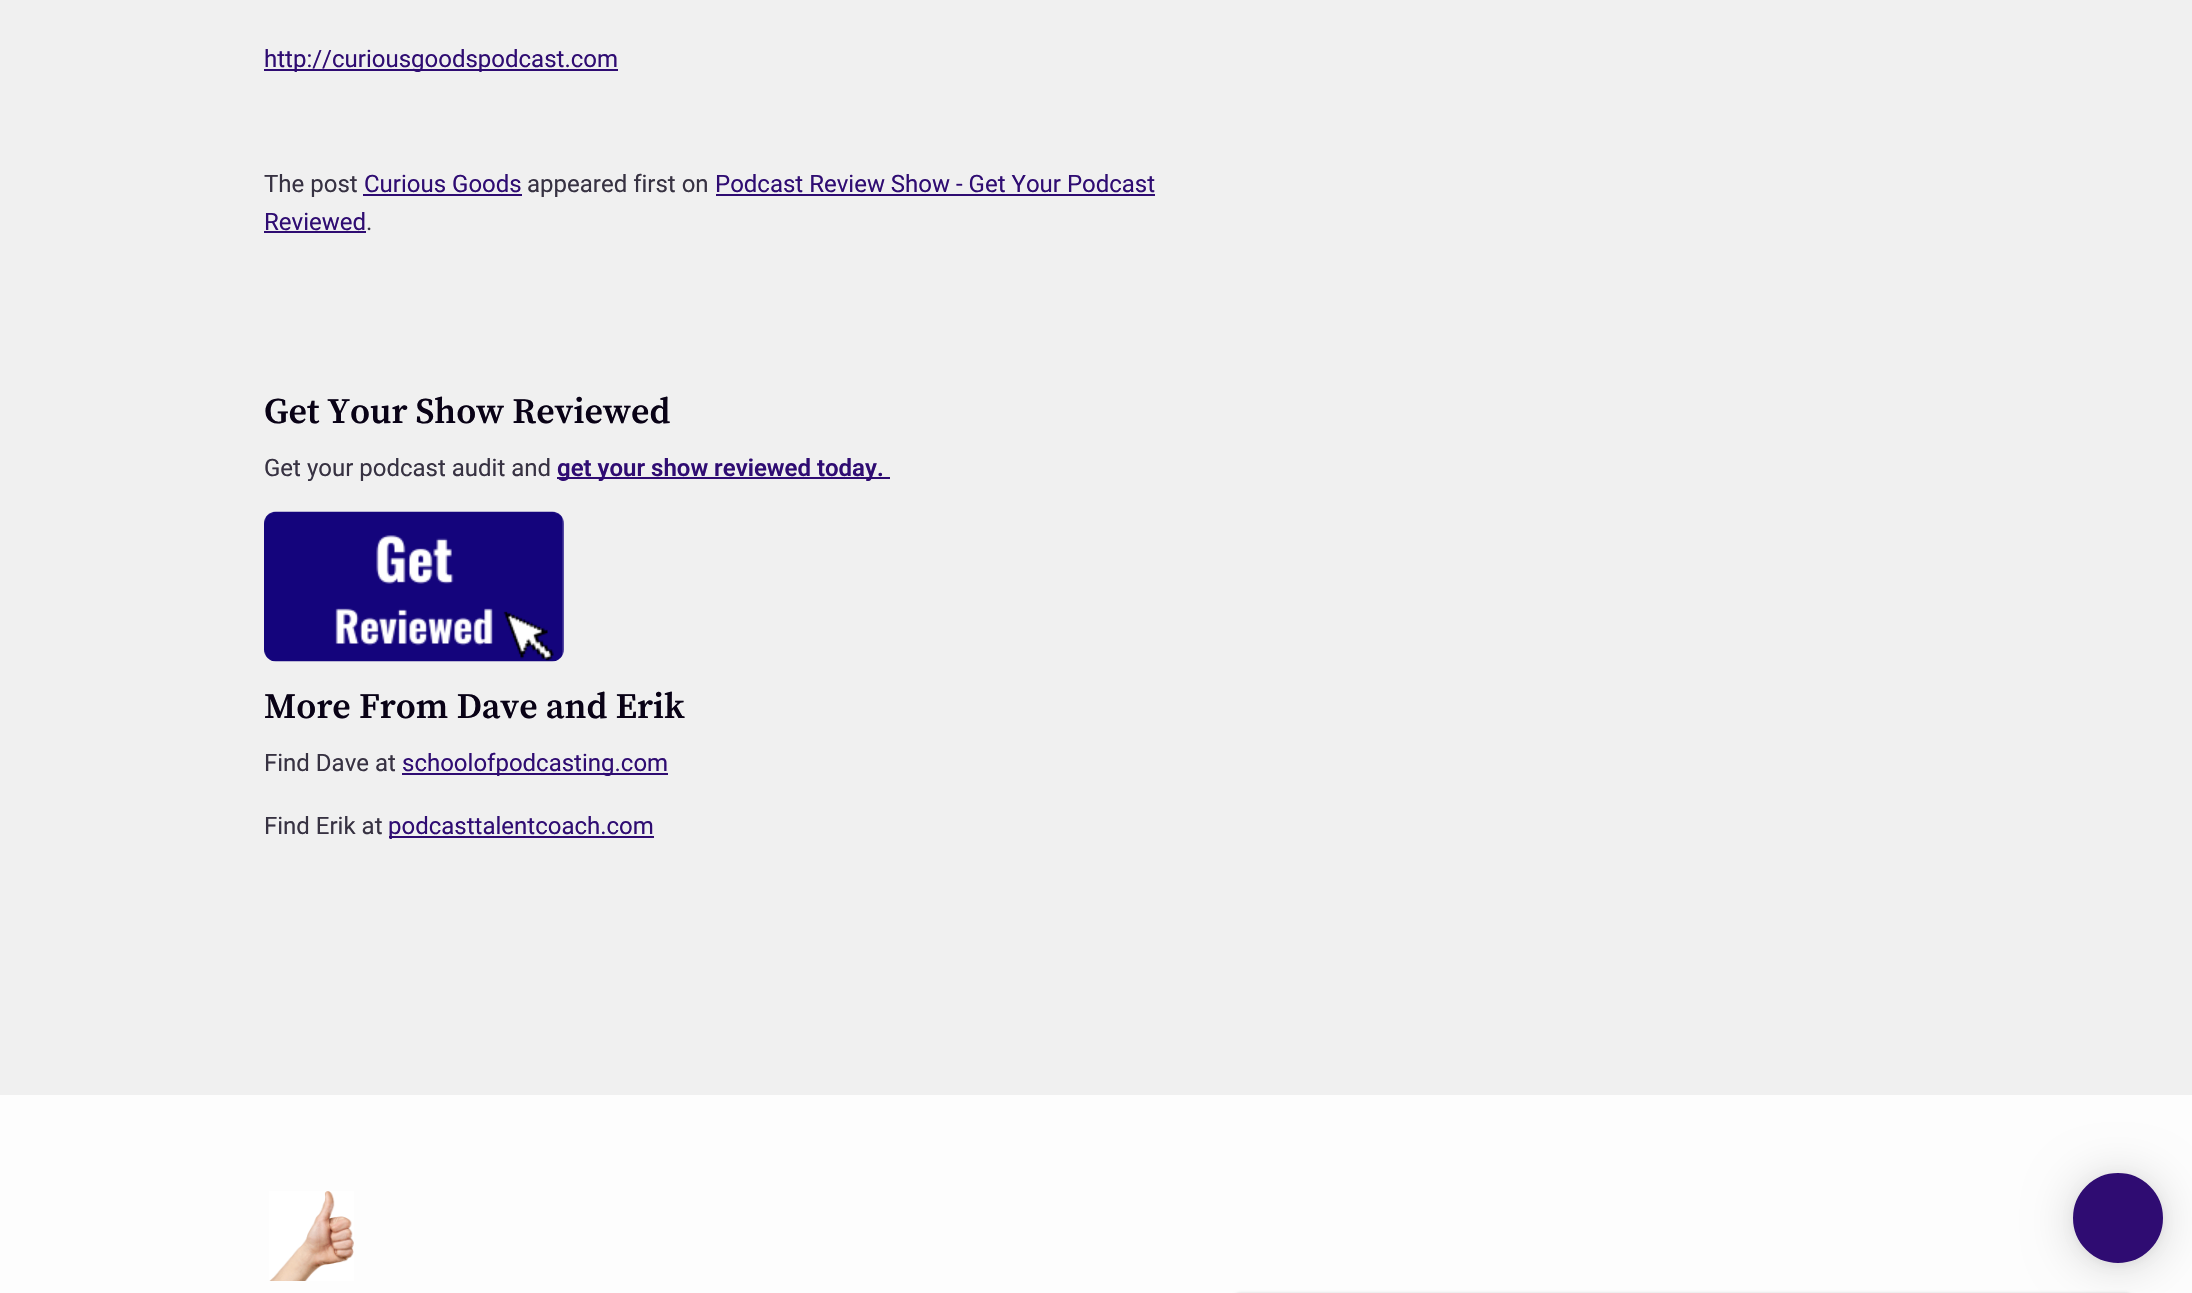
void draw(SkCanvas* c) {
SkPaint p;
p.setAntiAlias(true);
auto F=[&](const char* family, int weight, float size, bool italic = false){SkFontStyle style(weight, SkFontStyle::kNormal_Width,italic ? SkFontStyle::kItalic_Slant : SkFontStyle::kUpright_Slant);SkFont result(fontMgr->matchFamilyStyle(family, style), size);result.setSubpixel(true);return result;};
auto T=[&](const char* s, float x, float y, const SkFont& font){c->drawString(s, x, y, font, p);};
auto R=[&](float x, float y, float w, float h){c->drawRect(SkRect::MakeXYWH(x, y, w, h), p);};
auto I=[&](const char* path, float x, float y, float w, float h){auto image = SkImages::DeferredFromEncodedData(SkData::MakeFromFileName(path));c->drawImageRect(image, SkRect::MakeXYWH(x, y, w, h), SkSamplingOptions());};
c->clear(0xfffdfdfd);
p.setColor(0xfff0f0f0);
R(0,0,2192,1095);
p.setColor(0xff2f0c72);
R(264,69,354,2);
auto f1 = F("Roboto",400,24);
T("http://curiousgoodspodcast.com",264,67,f1);
p.setColor(0xff373242);
T("The post",264,192,f1);
p.setColor(0xff2f0c72);
T("Curious Goods",364,192,f1);
R(363,194,159,2);
p.setColor(0xff373242);
T("appeared first on",527,192,f1);
p.setColor(0xff2f0c72);
T("Podcast Review Show - Get Your Podcast",715,192,f1);
R(716,194,439,2);
T("Reviewed",264,230,f1);
R(264,231,102,2);
p.setColor(0xff373242);
T(".",366,230,f1);
auto f2 = F("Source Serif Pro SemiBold",600,36);
p.setColor(0xff090216);
T("Get Your Show Reviewed",264,423,f2);
p.setColor(0xff373242);
T("Get your podcast audit and",264,476,f1);
p.setColor(0xff2f0c72);
R(557,477,333,2);
auto f3 = F("Roboto",600,24);
T("get your show reviewed today.",557,476,f3);
I("1.png",264,511,300,151);
p.setColor(0xff090216);
T("More From Dave and Erik",264,718,f2);
p.setColor(0xff373242);
T("Find Dave at",264,771,f1);
p.setColor(0xff2f0c72);
R(402,773,266,2);
T("schoolofpodcasting.com",402,771,f1);
p.setColor(0xff373242);
T("Find Erik at",264,834,f1);
p.setColor(0xff2f0c72);
R(389,836,265,2);
T("podcasttalentcoach.com",388,834,f1);
I("2.png",269,1191,85,90);
p.setColor(0x29000000);
p.setMaskFilter(SkMaskFilter::MakeBlur(kNormal_SkBlurStyle, 24));
c->drawRoundRect(SkRect::MakeXYWH(2073,1176,90,90),45,45,p);
p.setMaskFilter(nullptr);
p.setColor(0x0f000000);
p.setMaskFilter(SkMaskFilter::MakeBlur(kNormal_SkBlurStyle, 4.5));
c->drawRoundRect(SkRect::MakeXYWH(2073,1175,90,90),45,45,p);
p.setMaskFilter(nullptr);
p.setColor(0xff2f0c72);
c->drawCircle(2118,1218,44,p);
p.setStroke(true);
p.setStrokeWidth(2);
c->drawCircle(2118,1218,44,p);
p.setStroke(false);
p.setColor(0x26000000);
p.setMaskFilter(SkMaskFilter::MakeBlur(kNormal_SkBlurStyle, 1.5));
c->drawRoundRect(SkRect::MakeXYWH(1233,1293,900,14),9,9,p);
p.setMaskFilter(nullptr);
}
